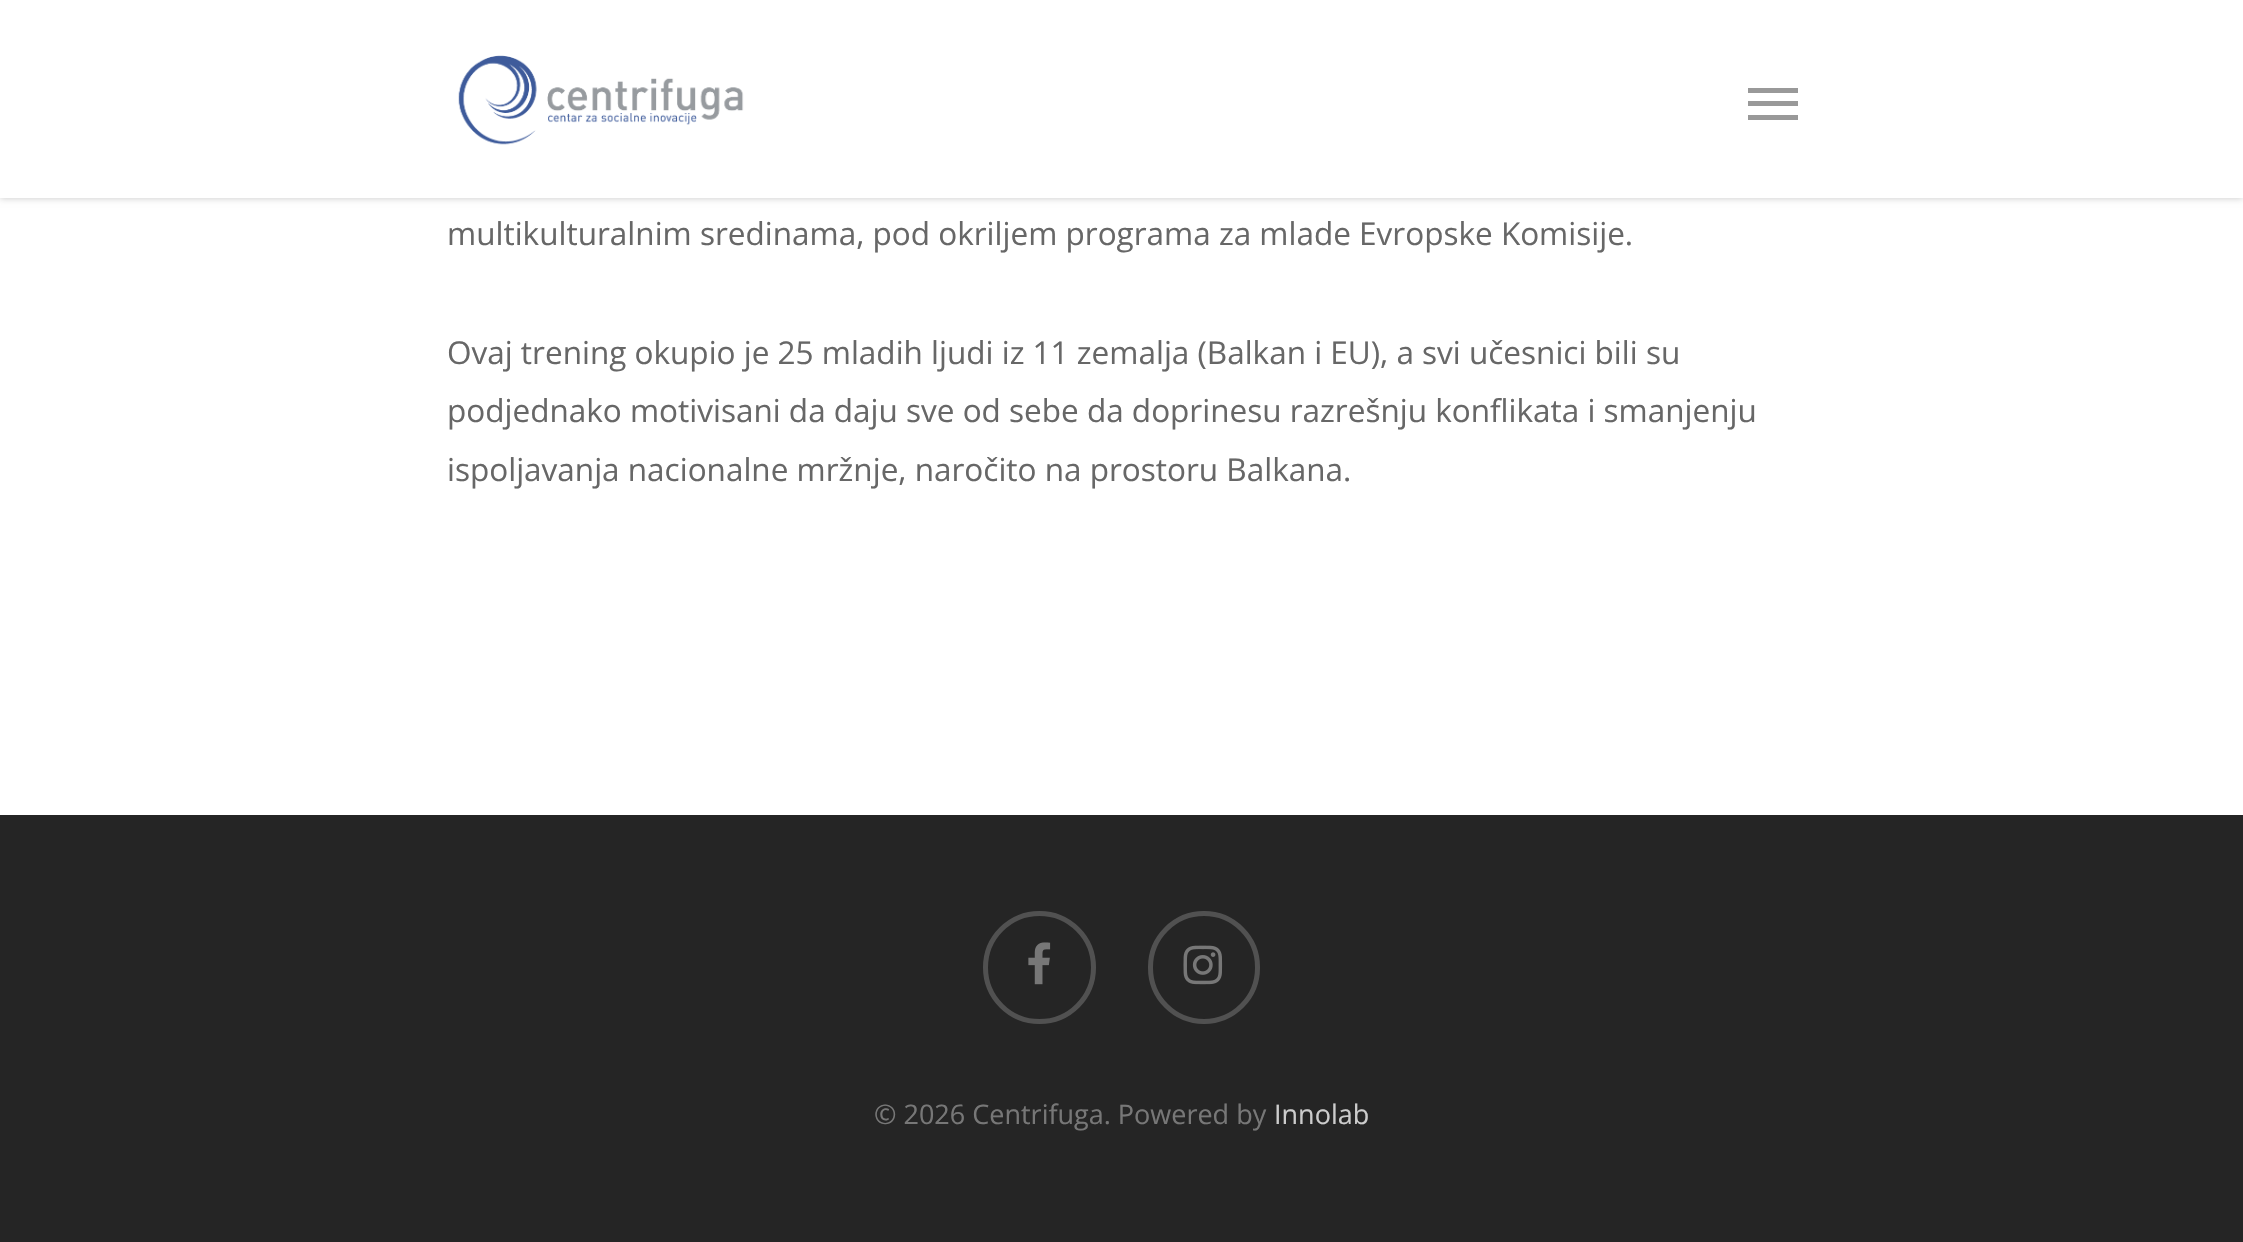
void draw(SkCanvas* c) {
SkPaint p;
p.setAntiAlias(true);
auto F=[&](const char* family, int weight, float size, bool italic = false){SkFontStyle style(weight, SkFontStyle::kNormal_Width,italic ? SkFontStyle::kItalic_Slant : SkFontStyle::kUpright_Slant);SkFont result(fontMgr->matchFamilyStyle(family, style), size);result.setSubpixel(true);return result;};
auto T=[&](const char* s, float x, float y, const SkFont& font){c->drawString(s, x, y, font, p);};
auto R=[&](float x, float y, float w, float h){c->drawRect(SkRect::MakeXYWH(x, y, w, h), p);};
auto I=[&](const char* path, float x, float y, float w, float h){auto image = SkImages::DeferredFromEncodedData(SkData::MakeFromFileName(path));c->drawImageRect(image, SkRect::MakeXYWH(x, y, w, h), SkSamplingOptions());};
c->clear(0xff252525);
p.setColor(0xffffffff);
R(0,198,2243,617);
p.setColor(0x38000000);
p.setMaskFilter(SkMaskFilter::MakeBlur(kNormal_SkBlurStyle, 3.5));
c->drawRect(SkRect::MakeXYWH(0,0,2243,198),p);
p.setMaskFilter(nullptr);
p.setColor(0xffffffff);
R(0,0,2243,198);
I("1.png",458,55,286,90);
p.setColor(0xff999999);
R(1748,88,50,5);
R(1748,115,50,5);
R(1748,101,50,5);
auto f1 = F("Open Sans",400,31.5);
p.setColor(0xff676767);
T("multikulturalnim sredinama, pod okriljem programa za mlade Evropske Komisije.",447,245,f1);
T("Ovaj trening okupio je 25 mladih ljudi iz 11 zemalja (Balkan i EU), a svi učesnici bili su",447,364,f1);
T("podjednako motivisani da daju sve od sebe da doprinesu razrešnju konflikata i smanjenju",447,422,f1);
T("ispoljavanja nacionalne mržnje, naročito na prostoru Balkana.",447,481,f1);
I("2.png",1028,942,23,43);
p.setStroke(true);
p.setStrokeWidth(5);
p.setColor(0xff515151);
c->drawCircle(1039.5,967.5,54,p);
I("3.png",1183,945,40,40);
c->drawRoundRect(SkRect::MakeXYWH(1150.5,913.5,107,108),53.5,53.5,p);
auto f2 = F("Open Sans",400,27);
p.setStroke(false);
p.setColor(0xff777777);
T("© 2026 Centrifuga. Powered by",874,1124,f2);
p.setColor(0xffcccccc);
T("Innolab",1274,1124,f2);
}
